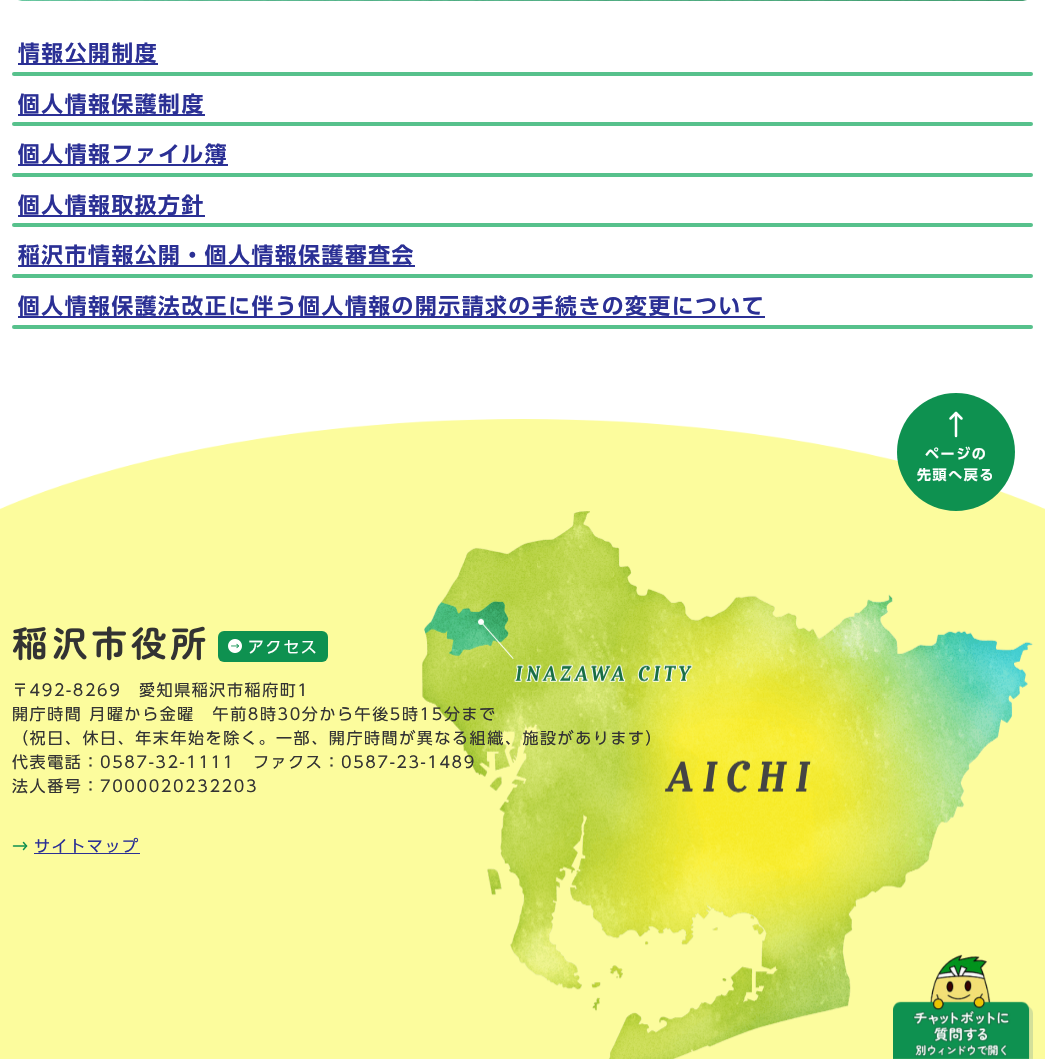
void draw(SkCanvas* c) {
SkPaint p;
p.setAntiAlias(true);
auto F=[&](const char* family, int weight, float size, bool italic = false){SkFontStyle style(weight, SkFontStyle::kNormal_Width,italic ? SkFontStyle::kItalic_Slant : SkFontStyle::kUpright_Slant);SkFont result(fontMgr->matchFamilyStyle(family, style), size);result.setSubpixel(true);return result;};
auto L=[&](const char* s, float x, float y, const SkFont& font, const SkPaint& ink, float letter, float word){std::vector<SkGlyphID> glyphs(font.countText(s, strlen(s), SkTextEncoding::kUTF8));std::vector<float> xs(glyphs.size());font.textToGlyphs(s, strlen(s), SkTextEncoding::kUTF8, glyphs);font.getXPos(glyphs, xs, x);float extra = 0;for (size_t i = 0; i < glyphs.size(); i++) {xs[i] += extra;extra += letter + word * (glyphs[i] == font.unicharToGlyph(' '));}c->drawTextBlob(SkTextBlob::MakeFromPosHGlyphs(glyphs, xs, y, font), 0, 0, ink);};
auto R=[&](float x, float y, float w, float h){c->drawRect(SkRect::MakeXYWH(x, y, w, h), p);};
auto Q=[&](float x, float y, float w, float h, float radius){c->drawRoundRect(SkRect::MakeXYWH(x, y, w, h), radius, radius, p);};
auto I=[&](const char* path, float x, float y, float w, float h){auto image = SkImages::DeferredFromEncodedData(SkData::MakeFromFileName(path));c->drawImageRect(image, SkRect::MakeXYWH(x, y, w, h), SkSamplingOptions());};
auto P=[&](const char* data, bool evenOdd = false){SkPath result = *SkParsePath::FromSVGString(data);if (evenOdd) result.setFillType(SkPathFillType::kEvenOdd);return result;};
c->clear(0xffffffff);
I("1.png",18,0,1009,1);
auto f1 = F("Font",600,21.75);
p.setColor(0xff2b3095);
L("情報公開制度",18,61,f1,p,1.6,0);
R(18,63,140,2);
p.setColor(0xff57c18c);
Q(12,72,1021,4,2);
p.setColor(0xff2b3095);
R(18,114,187,2);
L("個人情報保護制度",18,112,f1,p,1.6,0);
p.setColor(0xff57c18c);
Q(12,122,1021,4,2);
p.setColor(0xff2b3095);
L("個人情報ファイル簿",18,162,f1,p,1.6,0);
R(18,164,210,2);
p.setColor(0xff57c18c);
Q(12,173,1021,4,2);
p.setColor(0xff2b3095);
R(18,215,187,2);
L("個人情報取扱方針",18,213,f1,p,1.6,0);
p.setColor(0xff57c18c);
Q(12,223,1021,4,2);
p.setColor(0xff2b3095);
R(18,265,397,2);
L("稲沢市情報公開・個人情報保護審査会",18,263,f1,p,1.6,0);
p.setColor(0xff57c18c);
Q(12,274,1021,4,2);
p.setColor(0xff2b3095);
R(18,316,747,2);
L("個人情報保護法改正に伴う個人情報の開示請求の手続きの変更について",18,314,f1,p,1.6,0);
p.setColor(0xff57c18c);
Q(12,325,1021,4,2);
p.setColor(0xfffcfc9d);
R(0,419,1045,640);
I("2.png",0,393,1045,666);
p.setColor(0xff0e9150);
c->drawCircle(956,452,59,p);
p.setStroke(true);
p.setStrokeWidth(2.5);
p.setStrokeCap(SkPaint::kRound_Cap);
p.setStrokeJoin(SkPaint::kRound_Join);
p.setColor(0xffffffff);
c->drawPath(P("M950.5 418.5l5.5-5.5l5.5 5.5"),p);
p.setStrokeJoin(SkPaint::kMiter_Join);
c->drawPath(P("M956 413v23"),p);
auto f2 = F("Font",600,14);
p.setStroke(false);
L("ページの",925,459,f2,p,1.6,0);
L("先頭へ戻る",917,480,f2,p,1.6,0);
I("3.png",12,626,194,35);
p.setColor(0xff0e9150);
Q(218,631,110,31,6);
I("4.png",228,639,14,14);
auto f3 = F("Font",400,16);
p.setColor(0xffffffff);
L("アクセス",248,653,f3,p,1.6,0);
p.setColor(0xff333333);
L("〒492-8269　愛知県稲沢市稲府町1",12,696,f3,p,1.6,0);
L("開庁時間 月曜から金曜　午前8時30分から午後5時15分まで",12,720,f3,p,1.6,0);
L("（祝日、休日、年末年始を除く。一部、開庁時間が異なる組織、施設があります）",12,744,f3,p,1.6,0);
L("代表電話：0587-32-1111",12,768,f3,p,1.6,0);
L("ファクス：0587-23-1489",253,768,f3,p,1.6,0);
L("法人番号：7000020232203",12,792,f3,p,1.6,0);
p.setStroke(true);
p.setStrokeWidth(1.5);
p.setStrokeJoin(SkPaint::kRound_Join);
p.setColor(0xff0e9150);
c->drawPath(P("M23.5 842.5l3 3.5l-3 3.5"),p);
p.setStrokeJoin(SkPaint::kMiter_Join);
c->drawPath(P("M26.5 846h-13"),p);
p.setStroke(false);
p.setColor(0xff2b3095);
L("サイトマップ",34,852,f3,p,1.6,0);
R(34,853,106,1);
I("5.png",893,954,140,105);
}
